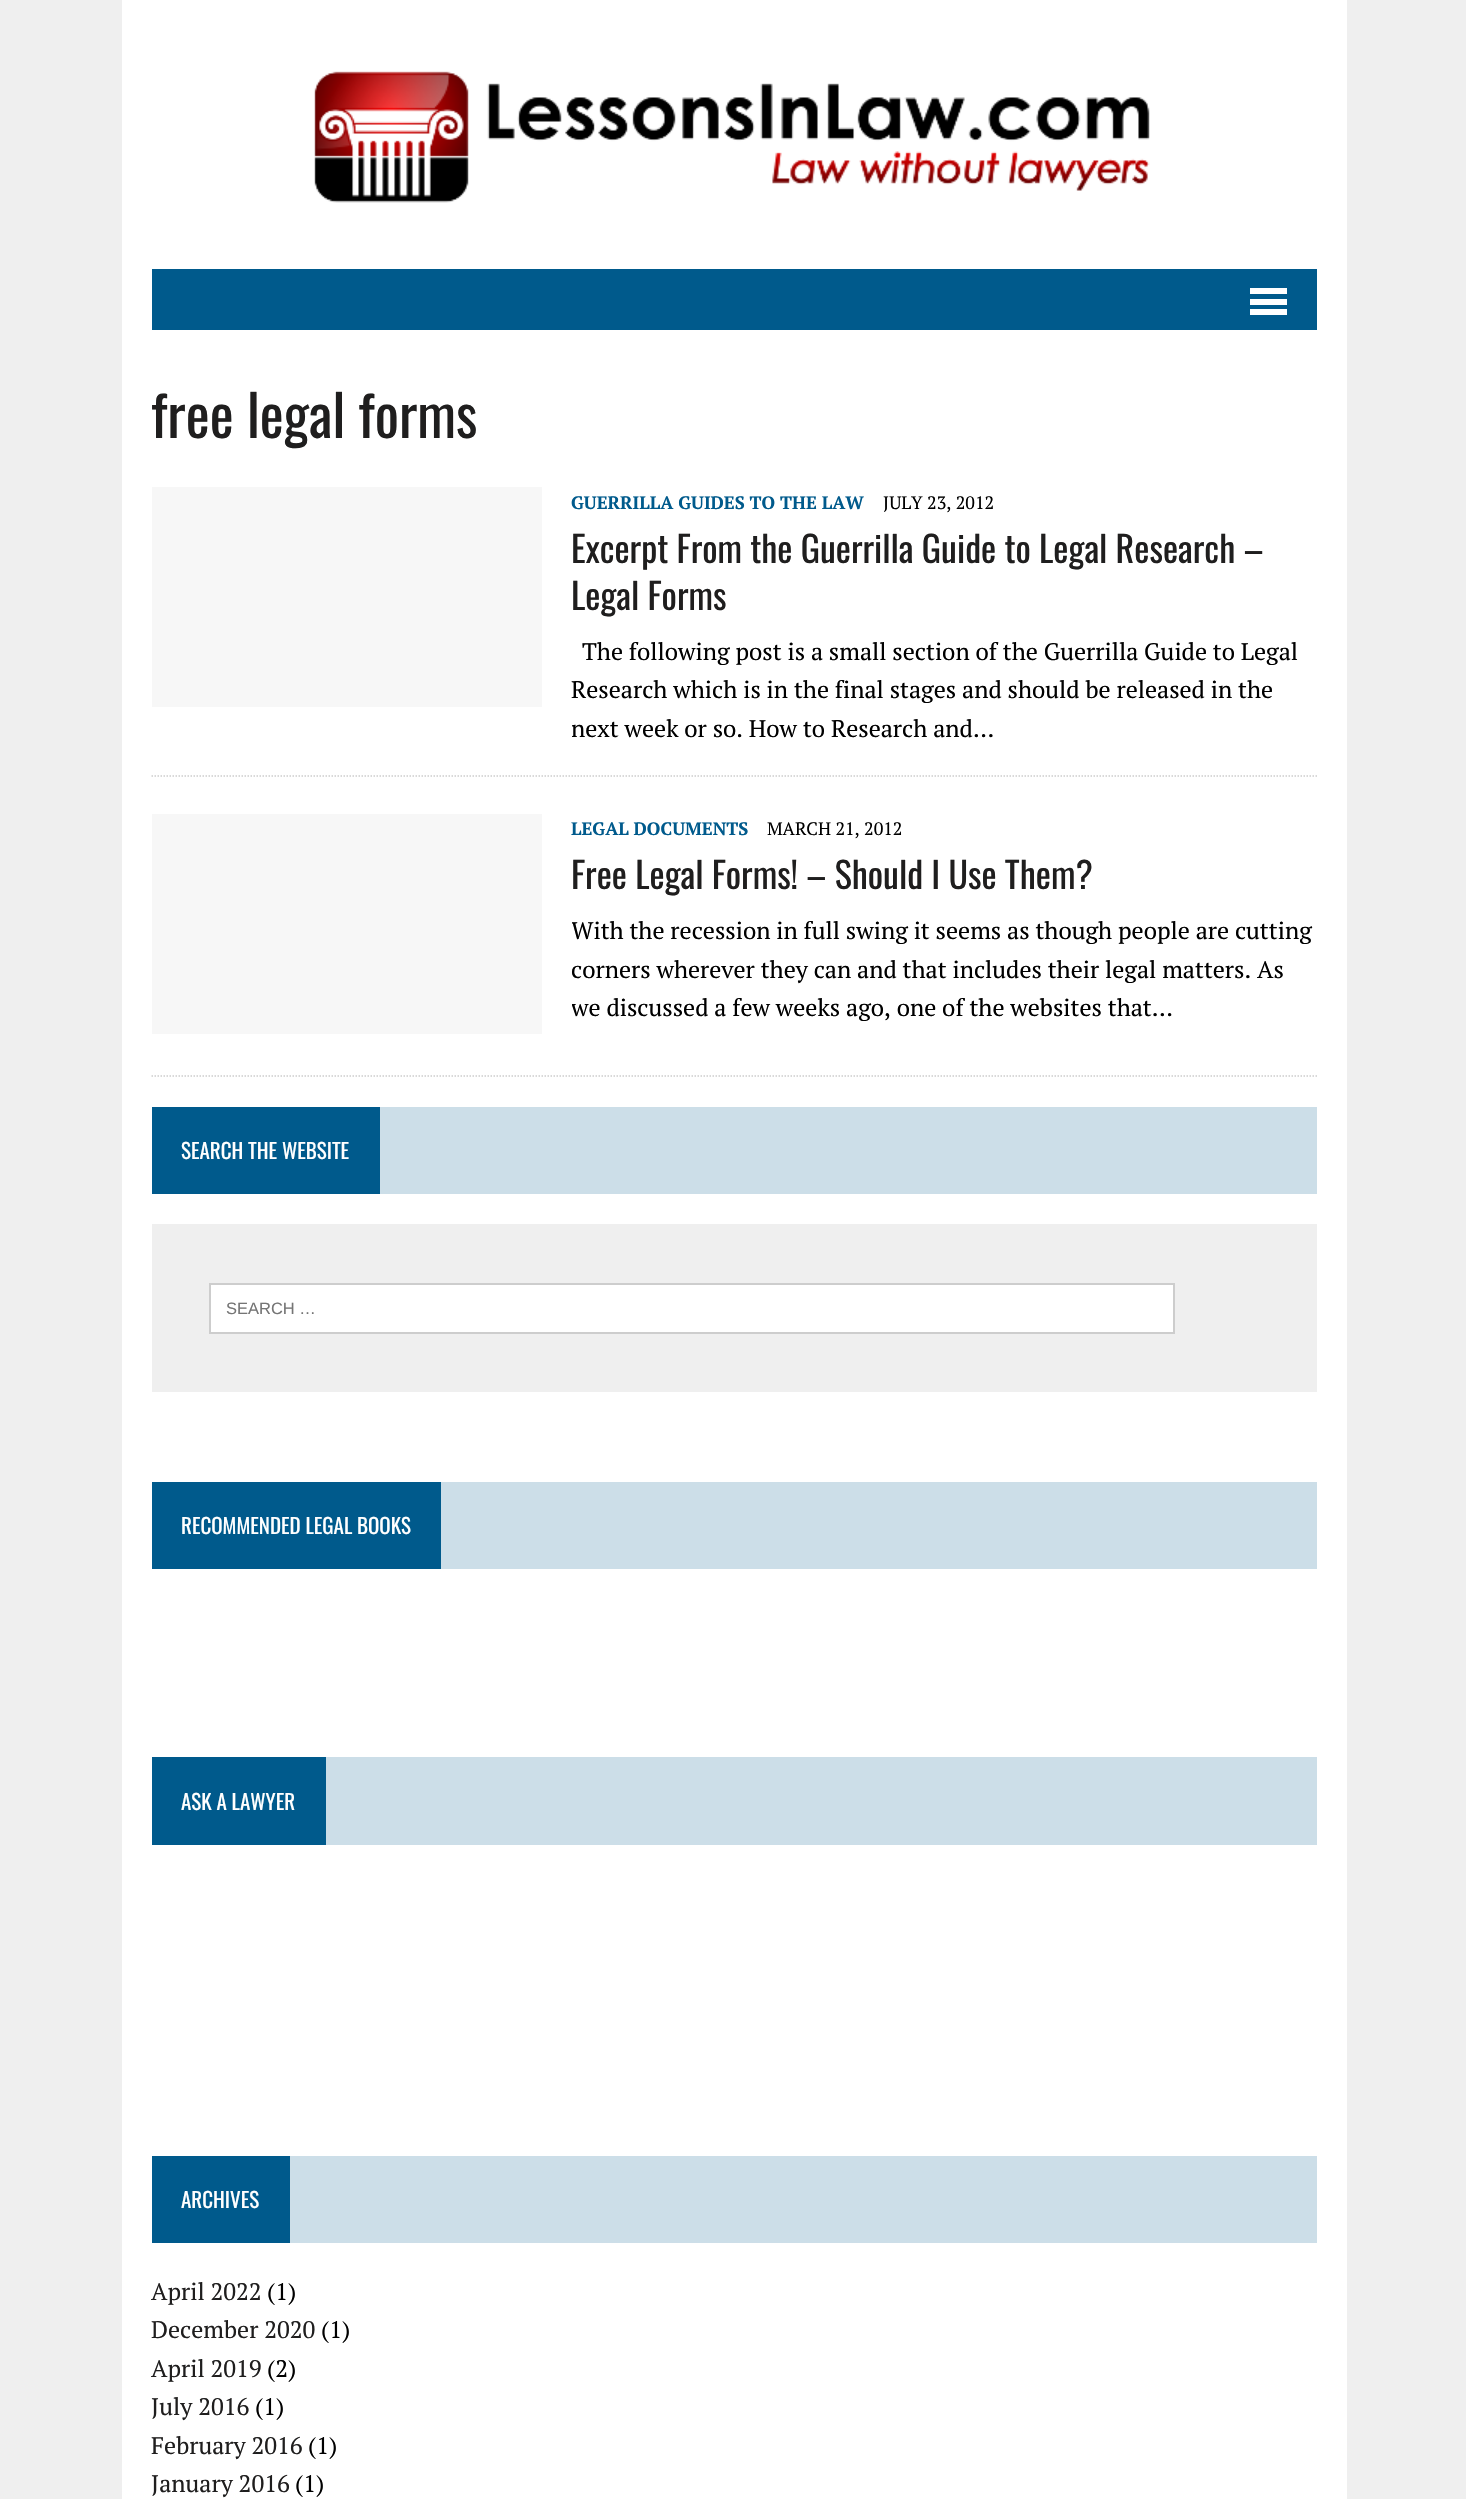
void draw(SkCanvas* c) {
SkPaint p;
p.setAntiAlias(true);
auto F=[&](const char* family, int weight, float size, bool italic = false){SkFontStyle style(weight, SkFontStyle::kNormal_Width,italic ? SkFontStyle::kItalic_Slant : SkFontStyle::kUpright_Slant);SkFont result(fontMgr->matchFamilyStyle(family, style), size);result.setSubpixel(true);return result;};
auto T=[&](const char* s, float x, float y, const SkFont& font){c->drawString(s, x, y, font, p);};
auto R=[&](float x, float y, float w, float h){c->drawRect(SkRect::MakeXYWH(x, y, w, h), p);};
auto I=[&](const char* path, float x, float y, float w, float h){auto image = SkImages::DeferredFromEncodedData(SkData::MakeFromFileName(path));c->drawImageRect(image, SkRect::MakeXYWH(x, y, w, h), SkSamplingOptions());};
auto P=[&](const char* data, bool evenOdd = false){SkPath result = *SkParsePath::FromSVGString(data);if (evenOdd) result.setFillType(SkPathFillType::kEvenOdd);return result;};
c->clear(0xffefefef);
p.setColor(0xffffffff);
R(122,0,1225,2499);
I("1.png",314,71,836,132);
p.setColor(0xff005a8c);
R(152,269,1165,61);
p.setColor(0xffffffff);
R(1250,288,37,6);
R(1250,299,37,6);
R(1250,309,37,6);
c->save();
c->clipRect(SkRect::MakeXYWH(152,377,1165,730));
auto f1 = F("Oswald",400,57);
p.setColor(0xff1f1e1e);
T("free legal forms",151,438,f1);
c->restore();
p.setColor(0xfff7f7f7);
R(152,487,390,220);
auto f2 = F("PT Serif",700,18);
p.setColor(0xff005a8c);
T("GUERRILLA GUIDES TO THE LAW",571,509,f2);
auto f3 = F("PT Serif",400,18);
p.setColor(0xff000000);
T("JULY 23, 2012",883,509,f3);
auto f4 = F("Oswald",400,36);
p.setColor(0xff1f1e1e);
T("Excerpt From the Guerrilla Guide to Legal Research –",571,563,f4);
T("Legal Forms",571,610,f4);
auto f5 = F("PT Serif",400,24);
p.setColor(0xff000000);
T("The following post is a small section of the Guerrilla Guide to Legal",582,660,f5);
T("Research which is in the final stages and should be released in the",571,698,f5);
c->save();
c->clipRect(SkRect::MakeXYWH(572,633,745,116));
T("next week or so. How to Research and…",571,737,f5);
c->restore();
p.setStroke(true);
p.setStrokeWidth(1.5);
p.setColor(0xffcdcdcd);
p.setPathEffect(SkDashPathEffect::Make({{1.5f,1.5f}}, 0));
c->drawPath(P("M151.5 776h1165.5"),p);
p.setPathEffect(nullptr);
p.setStroke(false);
p.setColor(0xfff7f7f7);
R(152,814,390,220);
p.setColor(0xff005a8c);
T("LEGAL DOCUMENTS",571,835,f2);
p.setColor(0xff000000);
T("MARCH 21, 2012",767,835,f3);
p.setColor(0xff1f1e1e);
T("Free Legal Forms! – Should I Use Them?",571,889,f4);
c->save();
c->clipRect(SkRect::MakeXYWH(572,912,745,116));
p.setColor(0xff000000);
T("With the recession in full swing it seems as though people are cutting",571,939,f5);
T("corners wherever they can and that includes their legal matters. As",571,978,f5);
T("we discussed a few weeks ago, one of the websites that…",571,1016,f5);
c->restore();
p.setStroke(true);
p.setColor(0xffcdcdcd);
p.setPathEffect(SkDashPathEffect::Make({{1.5f,1.5f}}, 0));
c->drawPath(P("M151.5 1076h1165.5"),p);
p.setPathEffect(nullptr);
p.setStroke(false);
p.setColor(0xffccdee8);
R(380,1107,937,87);
p.setColor(0xff005a8c);
R(152,1107,228,87);
auto f6 = F("Oswald",400,21);
p.setColor(0xffffffff);
T("SEARCH THE WEBSITE",181,1159,f6);
p.setColor(0xffefefef);
R(152,1224,1165,168);
p.setColor(0xffffffff);
c->drawRect(SkRect::MakeXYWH(210,1284,964,49),p);
p.setStroke(true);
p.setStrokeWidth(2);
p.setColor(0xffcdcdcd);
c->drawRect(SkRect::MakeXYWH(210,1284,964,49),p);
auto f7 = F("Liberation Sans",400,16.5);
p.setStroke(false);
p.setColor(0xff757575);
T("SEARCH …",226,1314,f7);
p.setColor(0xffccdee8);
R(441,1482,876,87);
p.setColor(0xff005a8c);
R(152,1482,289,87);
p.setColor(0xffffffff);
T("RECOMMENDED LEGAL BOOKS",181,1534,f6);
p.setColor(0xffccdee8);
R(326,1757,991,88);
p.setColor(0xff005a8c);
R(152,1757,174,88);
p.setColor(0xffffffff);
T("ASK A LAWYER",181,1810,f6);
p.setColor(0xffccdee8);
R(290,2156,1027,87);
p.setColor(0xff005a8c);
R(152,2156,138,87);
p.setColor(0xffffffff);
T("ARCHIVES",181,2208,f6);
p.setColor(0xff1f1e1e);
T("April 2022",151,2300,f5);
p.setColor(0xff000000);
T("(1)",267,2300,f5);
p.setColor(0xff1f1e1e);
T("December 2020",151,2338,f5);
p.setColor(0xff000000);
T("(1)",321,2338,f5);
p.setColor(0xff1f1e1e);
T("April 2019",151,2377,f5);
p.setColor(0xff000000);
T("(2)",267,2377,f5);
p.setColor(0xff1f1e1e);
T("July 2016",151,2415,f5);
p.setColor(0xff000000);
T("(1)",255,2415,f5);
p.setColor(0xff1f1e1e);
T("February 2016",151,2454,f5);
p.setColor(0xff000000);
T("(1)",308,2454,f5);
p.setColor(0xff1f1e1e);
T("January 2016",151,2492,f5);
p.setColor(0xff000000);
T("(1)",295,2492,f5);
}
